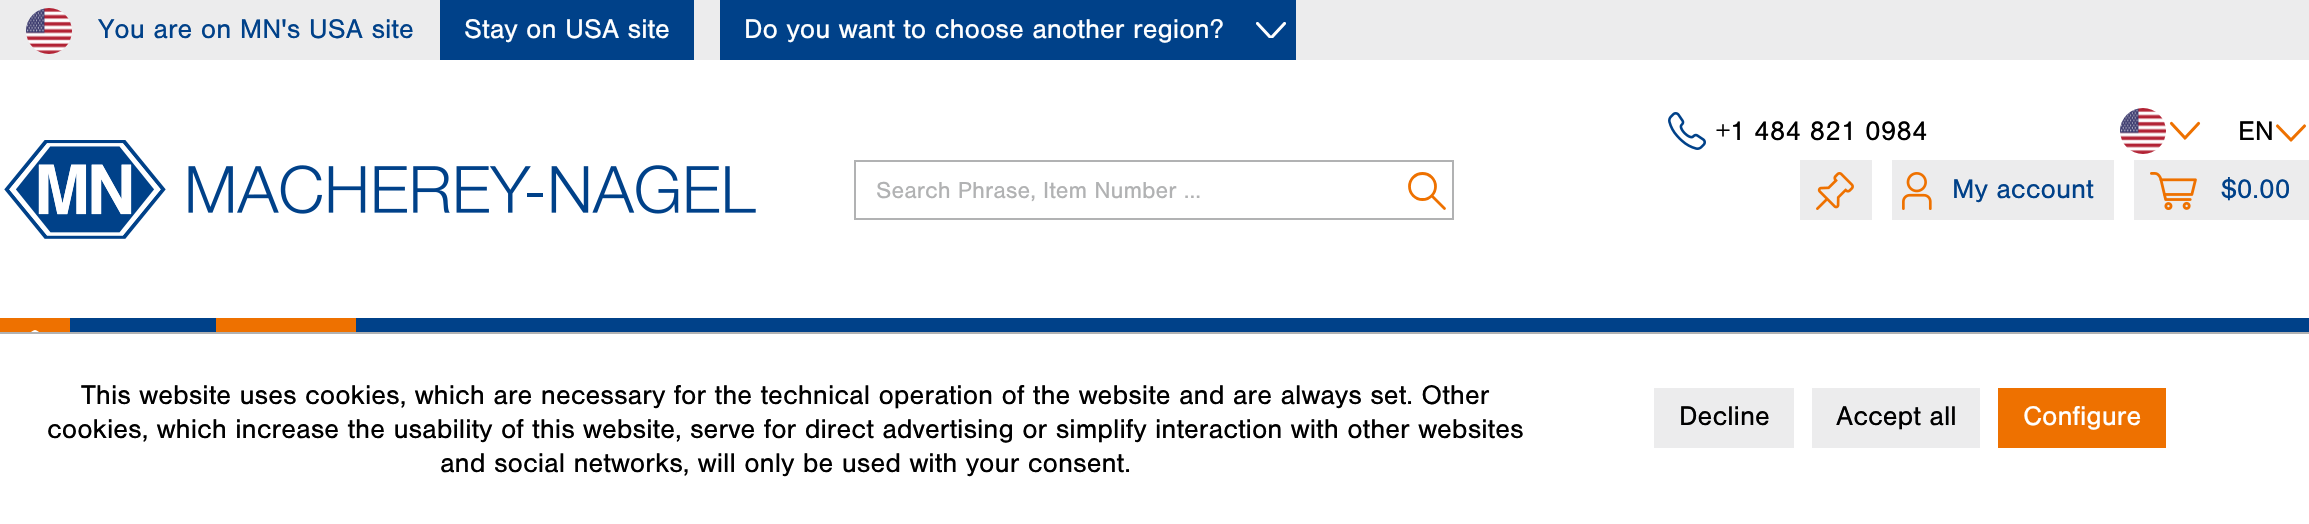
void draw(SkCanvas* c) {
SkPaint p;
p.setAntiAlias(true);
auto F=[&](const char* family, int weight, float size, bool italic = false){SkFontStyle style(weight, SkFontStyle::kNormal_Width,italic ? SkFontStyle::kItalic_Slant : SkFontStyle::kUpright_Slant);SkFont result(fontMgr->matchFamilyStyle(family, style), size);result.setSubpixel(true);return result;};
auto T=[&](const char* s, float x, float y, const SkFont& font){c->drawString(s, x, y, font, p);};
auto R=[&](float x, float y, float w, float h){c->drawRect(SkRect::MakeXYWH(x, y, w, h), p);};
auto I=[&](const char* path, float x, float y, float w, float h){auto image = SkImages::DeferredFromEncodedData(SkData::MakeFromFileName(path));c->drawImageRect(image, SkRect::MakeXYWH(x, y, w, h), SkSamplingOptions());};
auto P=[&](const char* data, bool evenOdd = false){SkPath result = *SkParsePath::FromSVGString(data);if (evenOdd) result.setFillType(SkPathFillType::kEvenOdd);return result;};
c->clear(0xffffffff);
p.setColor(0xffececed);
R(0,0,2309,60);
I("1.png",26,8,46,46);
auto f1 = F("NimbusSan",400,28);
p.setColor(0xff004189);
T("You are on MN's USA site",98,38,f1);
R(440,0,254,60);
p.setColor(0xffffffff);
T("Stay on USA site",464,38,f1);
p.setColor(0xff004189);
R(720,0,576,60);
p.setColor(0xffffffff);
T("Do you want to choose another region?",744,38,f1);
c->save();
c->clipRect(SkRect::MakeXYWH(1256,22,30,16));
p.setStroke(true);
p.setStrokeWidth(3.1);
p.setStrokeCap(SkPaint::kRound_Cap);
p.setStrokeJoin(SkPaint::kRound_Join);
c->drawPath(P("M1284.5 23.5l-13.5 14.5l-13.5-14.5"),p);
c->restore();
I("2.png",1668,112,38,38);
p.setStroke(false);
p.setColor(0xff000000);
T("+1 484 821 0984",1716,140,f1);
I("3.png",2120,108,46,46);
p.setStroke(true);
p.setColor(0xffee7100);
c->drawPath(P("M2198.5 123.5l-13.5 14.5l-13.5-14.5"),p);
p.setStroke(false);
p.setColor(0xff000000);
T("EN",2238,140,f1);
p.setStroke(true);
p.setColor(0xffee7100);
c->drawPath(P("M2304.5 126l-13.5 14l-13.5-14"),p);
I("4.png",4,140,752,99);
p.setStrokeWidth(2);
p.setStrokeCap(SkPaint::kButt_Cap);
p.setStrokeJoin(SkPaint::kMiter_Join);
p.setColor(0xffb1b2b3);
c->drawRect(SkRect::MakeXYWH(855,161,598,58),p);
auto f2 = F("NimbusSan",400,24);
p.setStroke(false);
T("Search Phrase, Item Number ...",876,198,f2);
p.setStroke(true);
p.setStrokeWidth(2.8);
p.setColor(0xffee7100);
c->drawCircle(1422.5,186.5,13,p);
p.setStrokeCap(SkPaint::kRound_Cap);
c->drawPath(P("M1432.5 196.5l12 12"),p);
p.setStroke(false);
p.setColor(0xffececed);
R(1800,160,72,60);
I("5.png",1816,172,38,38);
R(1892,160,222,60);
I("6.png",1902,172,30,38);
p.setColor(0xff004189);
T("My account",1952,198,f1);
p.setColor(0xffececed);
R(2134,160,175,60);
I("7.png",2150,172,47,38);
p.setColor(0xff004189);
T("$0.00",2221,198,f1);
R(70,318,2239,14);
p.setColor(0xffee7100);
R(0,318,70,14);
I("8.png",31,330,8,2);
R(216,318,140,14);
p.setColor(0xffb1b2b3);
R(0,332,2309,2);
p.setColor(0xff000000);
T("This website uses cookies, which are necessary for the technical operation of the website and are always set. Other",81,404,f1);
T("cookies, which increase the usability of this website, serve for direct advertising or simplify interaction with other websites",47,438,f1);
T("and social networks, will only be used with your consent.",440,472,f1);
p.setColor(0xffececed);
R(1654,388,140,60);
p.setColor(0xff000000);
T("Decline",1679,425,f1);
p.setColor(0xffececed);
R(1812,388,168,60);
p.setColor(0xff000000);
T("Accept all",1836,425,f1);
p.setColor(0xffee7100);
R(1998,388,168,60);
p.setColor(0xffffffff);
T("Configure",2023,425,f1);
}
